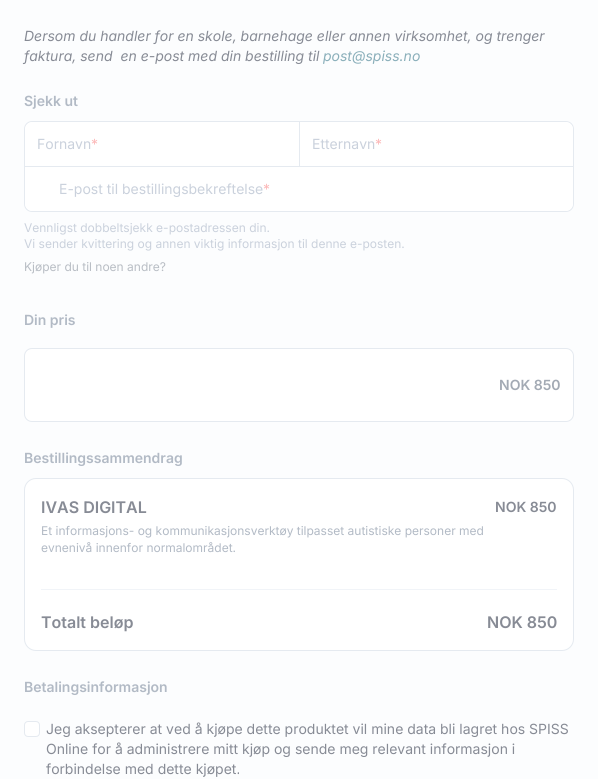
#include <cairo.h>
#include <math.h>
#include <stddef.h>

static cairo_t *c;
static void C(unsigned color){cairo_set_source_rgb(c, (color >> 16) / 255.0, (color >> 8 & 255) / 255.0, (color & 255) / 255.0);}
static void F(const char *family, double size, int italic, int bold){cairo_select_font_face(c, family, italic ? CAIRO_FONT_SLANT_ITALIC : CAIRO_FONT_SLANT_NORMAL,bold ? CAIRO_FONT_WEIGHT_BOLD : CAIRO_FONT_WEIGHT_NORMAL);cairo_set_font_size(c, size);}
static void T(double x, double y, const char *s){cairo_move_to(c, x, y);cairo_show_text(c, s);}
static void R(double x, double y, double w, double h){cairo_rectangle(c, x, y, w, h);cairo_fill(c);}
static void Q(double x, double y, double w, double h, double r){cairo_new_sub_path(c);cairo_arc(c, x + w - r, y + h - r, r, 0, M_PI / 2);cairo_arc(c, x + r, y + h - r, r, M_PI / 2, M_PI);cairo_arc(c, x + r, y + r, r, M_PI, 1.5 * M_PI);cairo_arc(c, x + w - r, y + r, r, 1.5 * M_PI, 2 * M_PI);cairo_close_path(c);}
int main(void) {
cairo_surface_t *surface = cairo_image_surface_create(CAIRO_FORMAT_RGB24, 598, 779);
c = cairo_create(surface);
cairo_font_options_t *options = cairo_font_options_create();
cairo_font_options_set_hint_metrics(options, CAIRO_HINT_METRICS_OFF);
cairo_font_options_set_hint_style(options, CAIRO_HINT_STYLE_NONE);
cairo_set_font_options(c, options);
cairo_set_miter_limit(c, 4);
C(0xfcfdfe);
cairo_paint(c);
F("Inter",14,1,0);
C(0x878b95);
T(24,41,"Dersom du handler for en skole, barnehage eller annen virksomhet, og trenger");
T(24,61,"faktura, send  en e-post med din bestilling til");
C(0x8aafba);
T(323,61,"post@spiss.no");
F("Inter SemiBold",14,0,0);
C(0xb2bac5);
T(24,106,"Sjekk ut");
C(0xffffff);
Q(24.5,121.5,549,90,7.5);
cairo_fill_preserve(c);
C(0xe5eaf0);
cairo_set_line_width(c,1);
cairo_stroke(c);
C(0xffffff);
Q(25,122,274,44,8);
cairo_fill(c);
F("Inter",14,0,0);
C(0xcad1dc);
T(37,149,"Fornavn");
C(0xfcb8b8);
T(91,149,"*");
C(0xe5eaf0);
R(299,122,1,44);
C(0xffffff);
Q(300,122,273,44,8);
cairo_fill(c);
C(0xcad1dc);
T(312,149,"Etternavn");
C(0xfcb8b8);
T(375,149,"*");
C(0xe5eaf0);
R(25,166,548,1);
C(0xffffff);
Q(25,167,548,44,8);
cairo_fill(c);
C(0xcad1dc);
T(59,194,"E-post til bestillingsbekreftelse");
C(0xfcb8b8);
T(263,194,"*");
F("Inter",12,0,0);
C(0xcad1dc);
T(24,232,"Vennligst dobbeltsjekk e-postadressen din.");
T(24,248,"Vi sender kvittering og annen viktig informasjon til denne e-posten.");
C(0xb8bdc4);
T(24,271,"Kjøper du til noen andre?");
F("Inter SemiBold",14,0,0);
C(0xb2bac5);
T(24,325,"Din pris");
C(0xffffff);
Q(24.5,348.5,549,73,7.5);
cairo_fill_preserve(c);
C(0xe5eaf0);
cairo_stroke(c);
C(0xa3aab4);
T(499,390,"NOK 850");
C(0xb2bac5);
T(24,463,"Bestillingssammendrag");
C(0xffffff);
Q(24.5,478.5,549,172,11.5);
cairo_fill_preserve(c);
C(0xe5eaf0);
cairo_stroke(c);
F("Inter SemiBold",16,0,0);
C(0x878b95);
T(41,513,"IVAS DIGITAL");
F("Inter",12,0,0);
C(0xb2bac5);
T(41,535,"Et informasjons- og kommunikasjonsverktøy tilpasset autistiske personer med");
T(41,552,"evnenivå innenfor normalområdet.");
F("Inter SemiBold",14,0,0);
C(0x878b95);
T(495,512,"NOK 850");
C(0xf1f4f8);
R(41,589,516,1);
F("Inter SemiBold",16,0,0);
C(0x878b95);
T(41,628,"Totalt beløp");
T(487,628,"NOK 850");
F("Inter SemiBold",14,0,0);
C(0xb2bac5);
T(24,692,"Betalingsinformasjon");
C(0xffffff);
Q(24.5,721.5,15,15,3.5);
cairo_fill_preserve(c);
C(0xe5eaf0);
cairo_stroke(c);
F("Inter",14,0,0);
C(0x878b95);
T(46,734,"Jeg aksepterer at ved å kjøpe dette produktet vil mine data bli lagret hos SPISS");
T(46,754,"Online for å administrere mitt kjøp og sende meg relevant informasjon i");
T(46,774,"forbindelse med dette kjøpet.");
cairo_surface_write_to_png(surface, "o.png");
cairo_font_options_destroy(options);
cairo_destroy(c);
cairo_surface_destroy(surface);
return 0;
}
